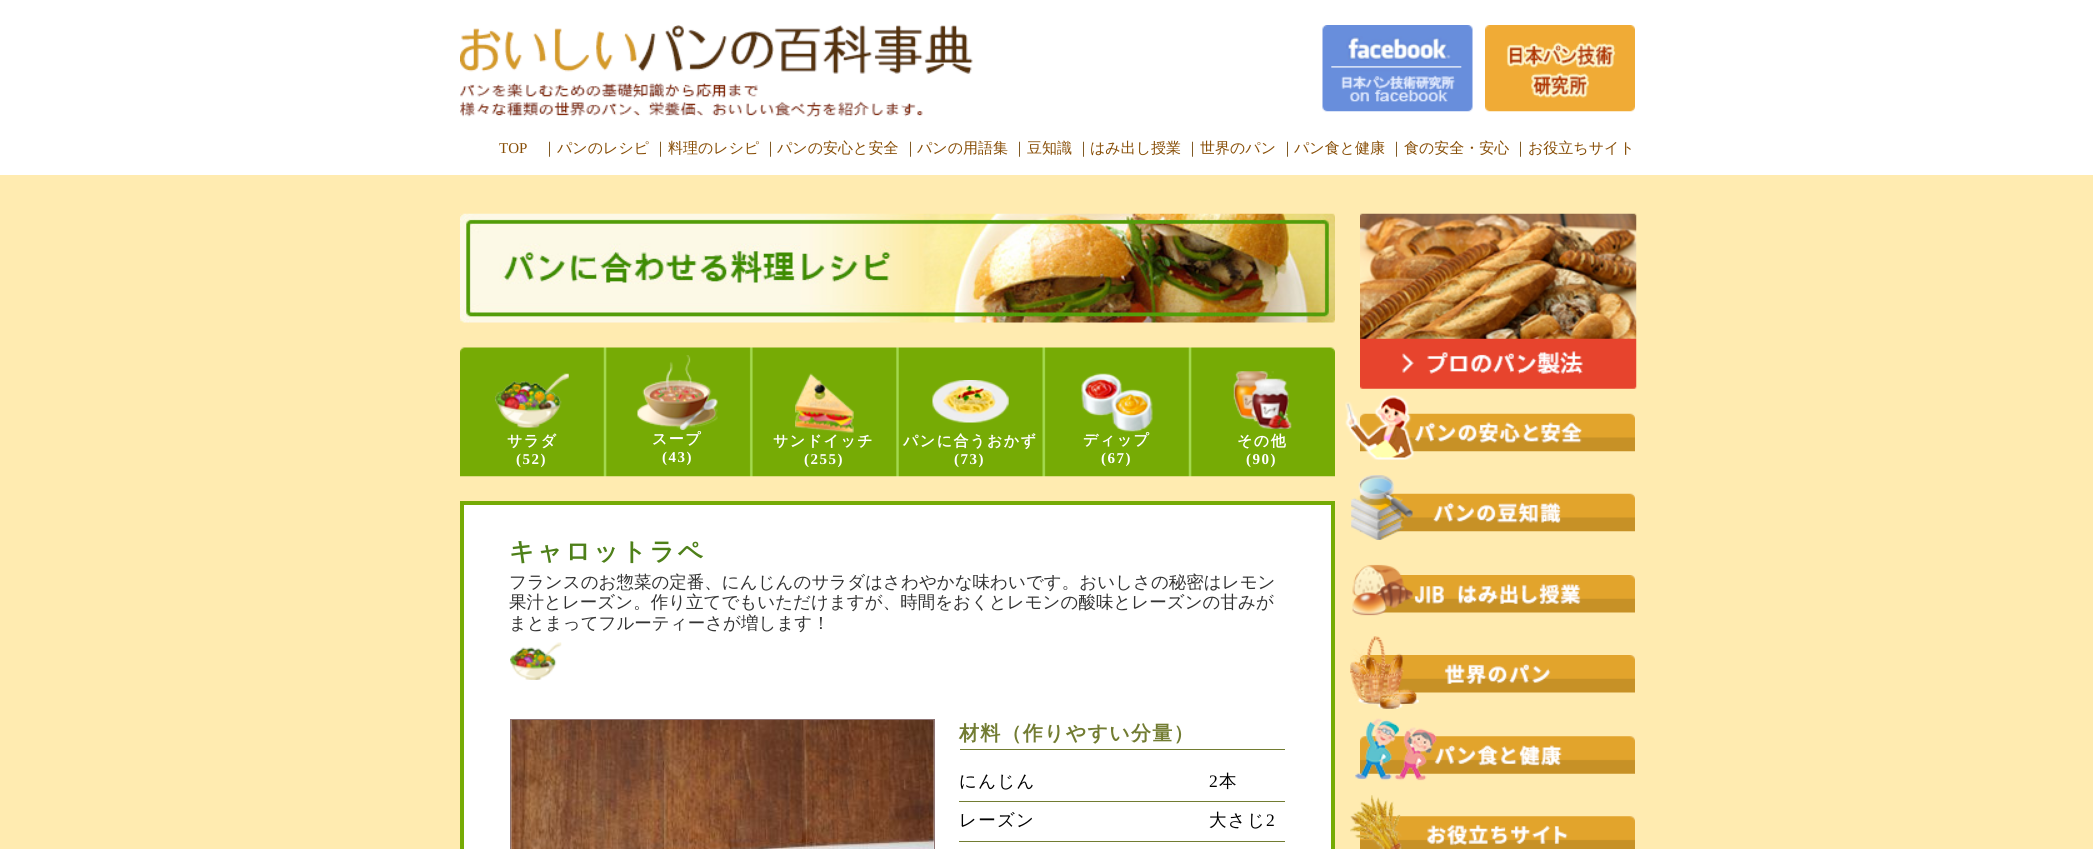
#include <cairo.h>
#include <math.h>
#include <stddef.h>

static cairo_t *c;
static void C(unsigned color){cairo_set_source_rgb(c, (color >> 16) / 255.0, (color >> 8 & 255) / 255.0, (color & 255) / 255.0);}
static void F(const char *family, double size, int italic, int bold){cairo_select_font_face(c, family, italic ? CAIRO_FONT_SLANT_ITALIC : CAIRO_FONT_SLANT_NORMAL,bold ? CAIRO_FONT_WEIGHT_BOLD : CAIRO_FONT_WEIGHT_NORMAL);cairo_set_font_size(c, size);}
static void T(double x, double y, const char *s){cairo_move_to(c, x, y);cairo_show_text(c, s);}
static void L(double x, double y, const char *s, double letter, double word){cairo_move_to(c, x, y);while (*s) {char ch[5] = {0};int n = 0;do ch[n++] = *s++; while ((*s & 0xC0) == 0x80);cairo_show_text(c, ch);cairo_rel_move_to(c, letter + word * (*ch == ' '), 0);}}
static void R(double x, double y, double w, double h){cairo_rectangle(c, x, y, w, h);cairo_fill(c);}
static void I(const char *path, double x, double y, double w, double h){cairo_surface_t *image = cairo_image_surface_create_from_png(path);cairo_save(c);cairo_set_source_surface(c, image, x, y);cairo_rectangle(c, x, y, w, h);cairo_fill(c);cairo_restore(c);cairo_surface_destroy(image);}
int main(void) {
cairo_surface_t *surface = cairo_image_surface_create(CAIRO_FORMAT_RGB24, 2093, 849);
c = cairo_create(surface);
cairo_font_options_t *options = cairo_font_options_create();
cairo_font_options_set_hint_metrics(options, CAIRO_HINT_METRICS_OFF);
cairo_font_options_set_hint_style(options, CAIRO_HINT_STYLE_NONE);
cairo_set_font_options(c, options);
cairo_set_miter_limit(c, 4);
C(0xffffff);
cairo_paint(c);
I("1.png",460,25,513,92);
I("2.png",1322,25,151,87);
I("3.png",1485,25,150,87);
F("Liberation Serif",15,0,0);
C(0x874d05);
T(499,153,"TOP");
F("WenQuanYi Zen Hei Medium",15,0,0);
C(0x734a0f);
T(542,153,"｜");
C(0x874d05);
T(557,153,"パンのレシピ");
C(0x734a0f);
T(653,153,"｜");
C(0x874d05);
T(668,153,"料理のレシピ");
C(0x734a0f);
T(763,153,"｜");
C(0x874d05);
T(777,153,"パンの安心と安全");
C(0x734a0f);
T(903,153,"｜");
C(0x874d05);
T(917,153,"パンの用語集");
C(0x734a0f);
T(1012,153,"｜");
C(0x874d05);
T(1027,153,"豆知識");
C(0x734a0f);
T(1076,153,"｜");
C(0x874d05);
T(1090,153,"はみ出し授業");
C(0x734a0f);
T(1185,153,"｜");
C(0x874d05);
T(1200,153,"世界のパン");
C(0x734a0f);
T(1280,153,"｜");
C(0x874d05);
T(1294,153,"パン食と健康");
C(0x734a0f);
T(1389,153,"｜");
C(0x874d05);
T(1404,153,"食の安全・安心");
C(0x734a0f);
T(1513,153,"｜");
C(0x874d05);
T(1528,153,"お役立ちサイト");
C(0xffebb0);
R(0,175,2093,674);
I("4.png",460,213,875,110);
I("5.png",460,347,875,130);
I("6.png",495,373,74,55);
F("WenQuanYi Zen Hei",15,0,1);
C(0xffffff);
L(507,446,"サラダ",1.5,0);
F("Liberation Serif",15,0,1);
L(516,464,"(52)",1.5,0);
I("7.png",637,355,81,75);
F("WenQuanYi Zen Hei",15,0,1);
L(652,444,"スープ",1.5,0);
F("Liberation Serif",15,0,1);
L(662,462,"(43)",1.5,0);
I("8.png",795,373,59,60);
F("WenQuanYi Zen Hei",15,0,1);
L(773,446,"サンドイッチ",1.5,0);
F("Liberation Serif",15,0,1);
L(804,464,"(255)",1.5,0);
I("9.png",932,380,77,43);
F("WenQuanYi Zen Hei",15,0,1);
L(903,446,"パンに合うおかず",1.5,0);
F("Liberation Serif",15,0,1);
L(954,464,"(73)",1.5,0);
I("10.png",1081,373,72,59);
F("WenQuanYi Zen Hei",15,0,1);
L(1083,445,"ディップ",1.5,0);
F("Liberation Serif",15,0,1);
L(1101,463,"(67)",1.5,0);
I("11.png",1233,371,59,58);
F("WenQuanYi Zen Hei",15,0,1);
L(1237,446,"その他",1.5,0);
F("Liberation Serif",15,0,1);
L(1246,464,"(90)",1.5,0);
cairo_rectangle(c,462,503,871,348);
cairo_fill_preserve(c);
C(0x76ab05);
cairo_set_line_width(c,4);
cairo_stroke(c);
F("WenQuanYi Zen Hei",25,0,1);
C(0x4e8019);
L(509,560,"キャロットラペ",2.5,0);
F("WenQuanYi Zen Hei Medium",17.5,0,0);
C(0x333333);
T(509,588,"フランスのお惣菜の定番、にんじんのサラダはさわやかな味わいです。おいしさの秘密はレモン");
T(509,608,"果汁とレーズン。作り立てでもいただけますが、時間をおくとレモンの酸味とレーズンの甘みが");
T(509,629,"まとまってフルーティーさが増します！");
I("12.png",510,642,52,38);
cairo_rectangle(c,510.5,719.5,424,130);
C(0x8e7474);
cairo_set_line_width(c,1);
cairo_stroke(c);
I("13.png",511,720,423,129);
C(0x727c32);
R(960,749,325,1);
F("WenQuanYi Zen Hei",20,0,1);
L(959,740,"材料（作りやすい分量）",1.25,0);
R(959,801,326,1);
F("WenQuanYi Zen Hei Medium",17.5,0,0);
C(0x000000);
L(959,787,"にんじん",1.25,0);
F("Liberation Serif",17.5,0,0);
L(1209,787,"2",1.25,0);
F("WenQuanYi Zen Hei Medium",17.5,0,0);
L(1219,787,"本",1.25,0);
C(0x727c32);
R(959,841,326,1);
C(0x000000);
L(959,826,"レーズン",1.25,0);
L(1209,826,"大さじ",1.25,0);
F("Liberation Serif",17.5,0,0);
L(1266,826,"2",1.25,0);
I("14.png",1360,213,277,176);
I("16.png",1360,413,275,39);
I("15.png",1345,395,69,65);
I("18.png",1360,493,275,39);
I("17.png",1351,475,62,65);
I("20.png",1379,575,256,38);
I("19.png",1352,564,61,52);
I("22.png",1360,655,275,38);
I("21.png",1350,636,69,73);
I("24.png",1360,736,275,38);
I("23.png",1355,718,82,63);
I("26.png",1360,816,275,33);
I("25.png",1350,795,53,54);
cairo_surface_write_to_png(surface, "o.png");
cairo_font_options_destroy(options);
cairo_destroy(c);
cairo_surface_destroy(surface);
return 0;
}
